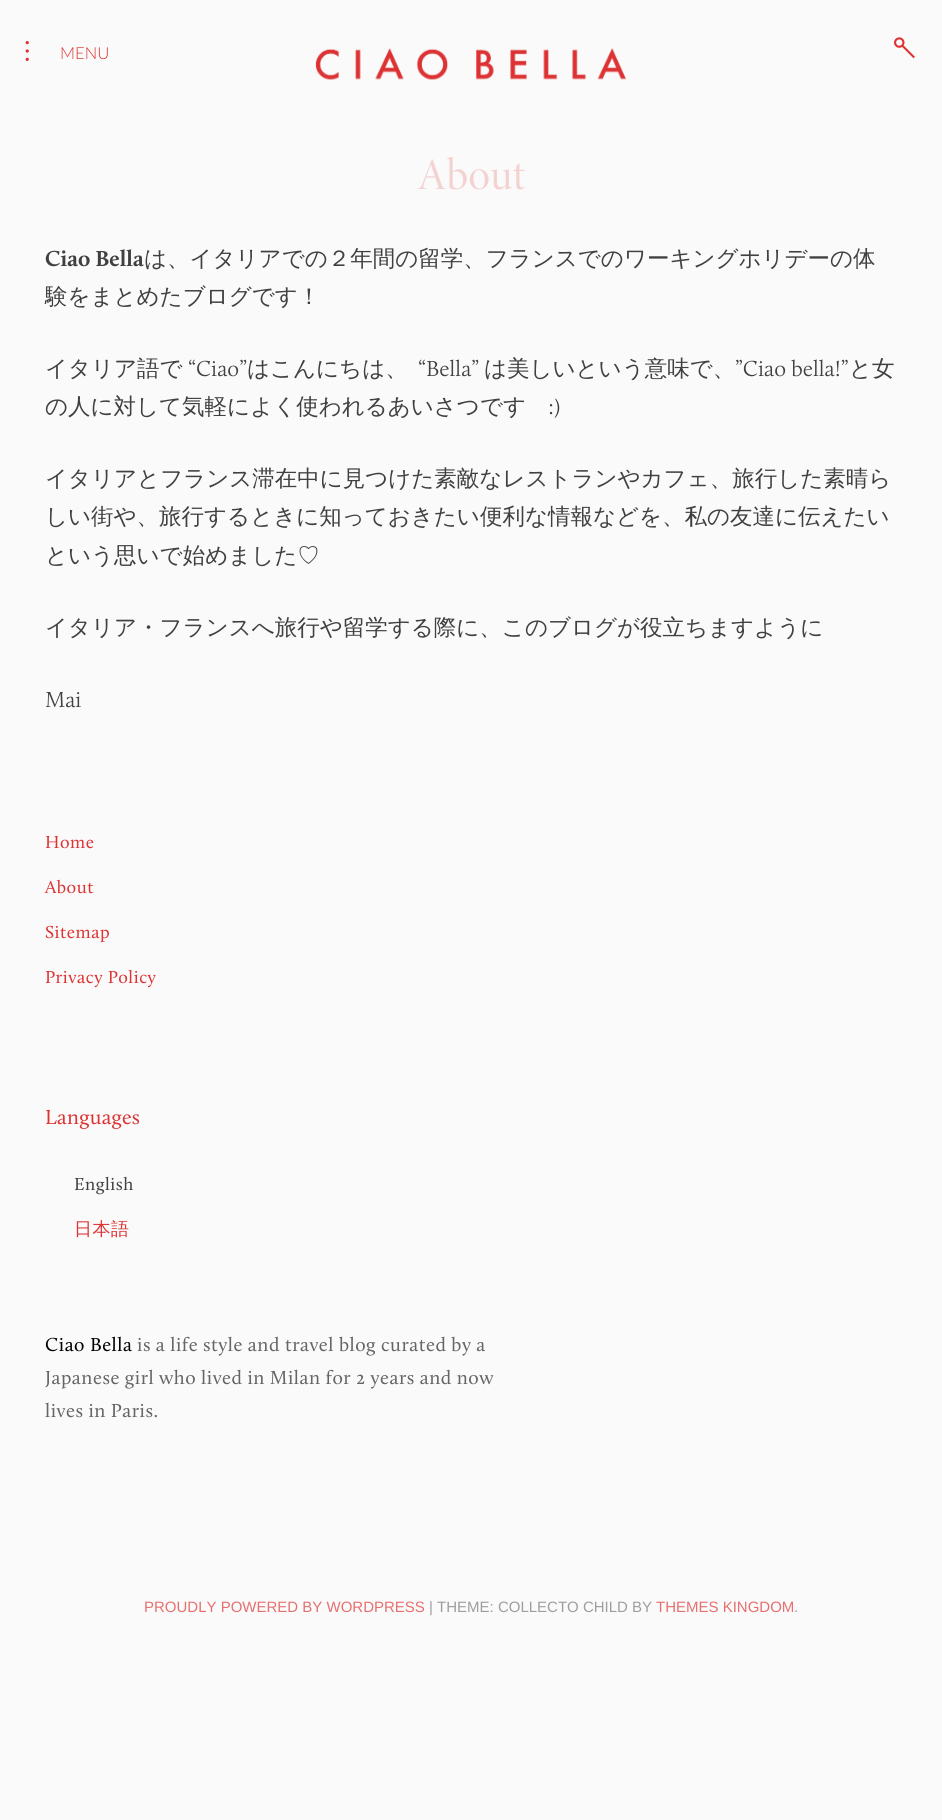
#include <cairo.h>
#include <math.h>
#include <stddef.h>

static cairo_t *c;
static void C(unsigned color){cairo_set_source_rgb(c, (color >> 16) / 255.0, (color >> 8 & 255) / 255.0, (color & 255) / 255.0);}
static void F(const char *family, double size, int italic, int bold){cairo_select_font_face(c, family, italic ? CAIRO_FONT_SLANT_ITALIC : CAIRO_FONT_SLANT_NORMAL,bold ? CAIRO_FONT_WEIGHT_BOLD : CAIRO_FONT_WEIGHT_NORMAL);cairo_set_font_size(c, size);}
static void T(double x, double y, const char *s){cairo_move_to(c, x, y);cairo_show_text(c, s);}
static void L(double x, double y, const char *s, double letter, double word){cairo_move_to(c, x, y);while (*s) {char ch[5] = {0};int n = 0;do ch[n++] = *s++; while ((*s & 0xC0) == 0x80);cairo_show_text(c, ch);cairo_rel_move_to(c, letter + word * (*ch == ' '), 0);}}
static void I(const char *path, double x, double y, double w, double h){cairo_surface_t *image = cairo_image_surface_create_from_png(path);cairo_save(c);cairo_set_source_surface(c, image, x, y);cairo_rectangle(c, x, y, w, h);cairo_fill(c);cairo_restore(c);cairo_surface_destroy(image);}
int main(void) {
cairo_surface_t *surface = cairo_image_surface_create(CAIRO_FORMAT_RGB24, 942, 1820);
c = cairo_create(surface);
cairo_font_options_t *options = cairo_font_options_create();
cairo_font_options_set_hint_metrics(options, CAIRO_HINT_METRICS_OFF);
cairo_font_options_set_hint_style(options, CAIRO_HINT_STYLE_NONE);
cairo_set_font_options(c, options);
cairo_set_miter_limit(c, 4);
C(0xfafafa);
cairo_paint(c);
I("1.png",25,41,4,20);
F("Lato Light",16.5,0,0);
C(0xdd3333);
T(60,59,"MENU");
I("2.png",315,48,311,33);
I("3.png",894,37,21,22);
F("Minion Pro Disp",45,0,0);
C(0xf4d2d2);
T(417,189,"About");
F("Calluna",22.5,0,1);
C(0x404040);
T(45,266,"Ciao Bella");
F("WenQuanYi Zen Hei Medium",22.5,0,0);
T(144,266,"は、イタリアでの２年間の留学、フランスでのワーキングホリデーの体");
T(45,304,"験をまとめたブログです！");
T(45,376,"イタリア語で");
F("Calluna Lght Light",22.5,0,0);
T(188,376,"“Ciao”");
F("WenQuanYi Zen Hei Medium",22.5,0,0);
T(247,376,"はこんにちは、");
F("Calluna Lght Light",22.5,0,0);
T(418,376,"“Bella”");
F("WenQuanYi Zen Hei Medium",22.5,0,0);
T(484,376,"は美しいという意味で、");
F("Calluna Lght Light",22.5,0,0);
T(735,376,"”Ciao bella!”");
F("WenQuanYi Zen Hei Medium",22.5,0,0);
T(849,376,"と女");
T(45,414,"の人に対して気軽によく使われるあいさつです");
F("Calluna Lght Light",22.5,0,0);
T(548,414,":)");
F("WenQuanYi Zen Hei Medium",22.5,0,0);
T(45,486,"イタリアとフランス滞在中に見つけた素敵なレストランやカフェ、旅行した素晴ら");
T(45,524,"しい街や、旅行するときに知っておきたい便利な情報などを、私の友達に伝えたい");
T(45,563,"という思いで始めました♡");
T(45,635,"イタリア・フランスへ旅行や留学する際に、このブログが役立ちますように");
F("Calluna Lght Light",22.5,0,0);
T(45,707,"Mai");
F("Calluna",18,0,0);
C(0xdd3333);
L(45,848,"Home",.5,0);
L(45,893,"About",.5,0);
L(45,938,"Sitemap",.5,0);
L(45,983,"Privacy Policy",.5,0);
F("Calluna",21,0,0);
L(45,1124,"Languages",.25,0);
F("Calluna",18,0,0);
C(0x404040);
L(74,1190,"English",.5,0);
F("WenQuanYi Zen Hei Medium",18,0,0);
C(0xdd3333);
L(74,1235,"日本語",.5,0);
F("Calluna",19.5,0,0);
C(0x000000);
L(45,1351,"Ciao Bella",.5,0);
C(0x656565);
L(137,1351,"is a life style and travel blog curated by a",.5,0);
L(45,1384,"Japanese girl who lived in Milan for 2 years and now",.5,0);
L(45,1417,"lives in Paris.",.5,0);
F("Liberation Sans",15,0,0);
C(0xe66f6f);
T(144,1612,"PROUDLY POWERED BY WORDPRESS");
C(0x9d9d9d);
T(429,1612,"| THEME: COLLECTO CHILD BY");
C(0xe66f6f);
T(656,1612,"THEMES KINGDOM");
C(0x9d9d9d);
T(794,1612,".");
cairo_surface_write_to_png(surface, "o.png");
cairo_font_options_destroy(options);
cairo_destroy(c);
cairo_surface_destroy(surface);
return 0;
}
